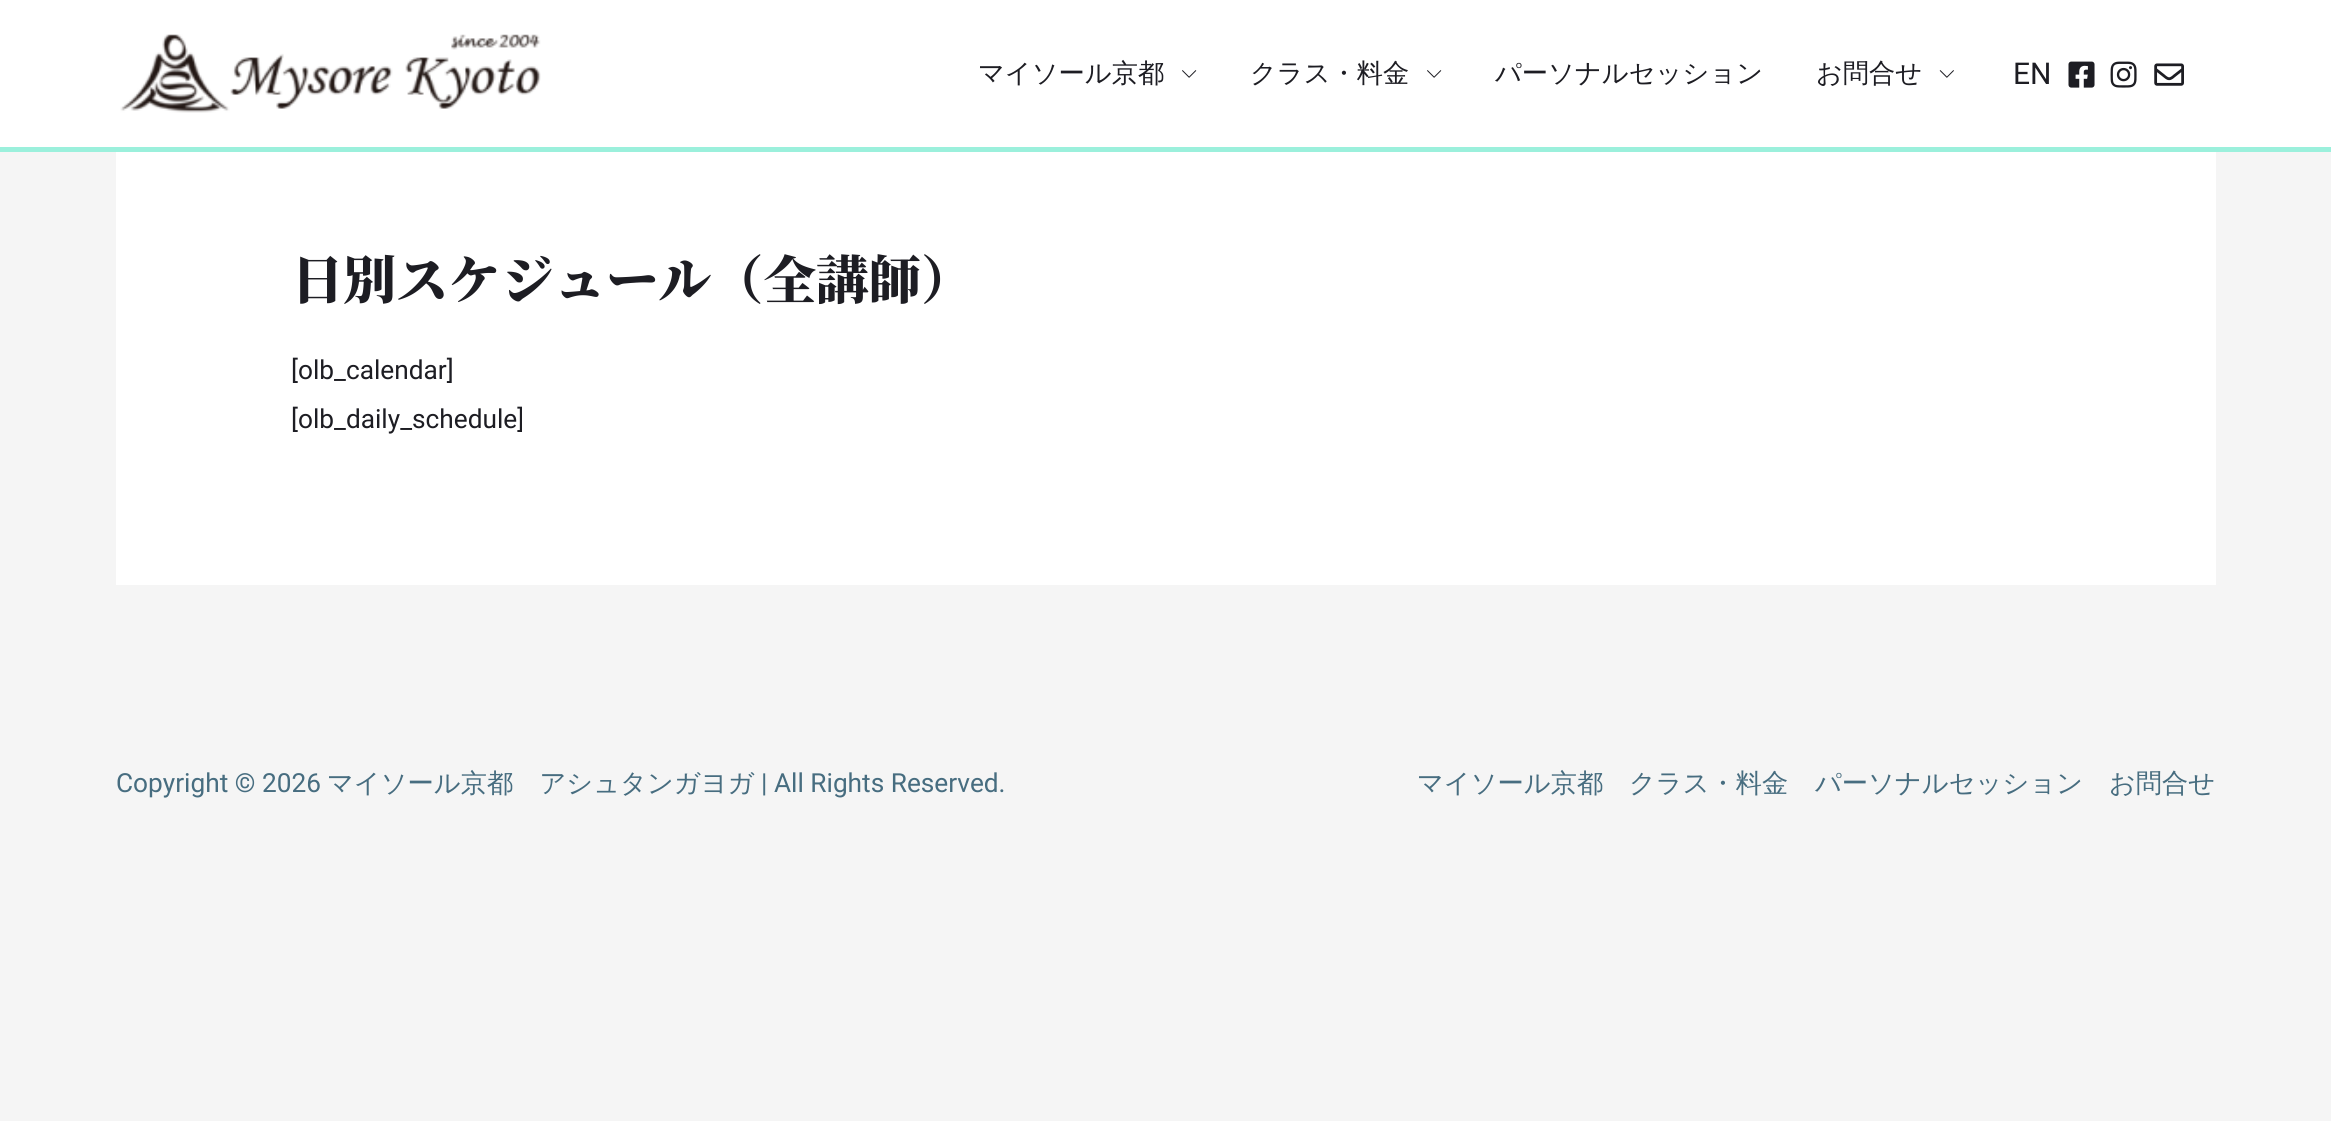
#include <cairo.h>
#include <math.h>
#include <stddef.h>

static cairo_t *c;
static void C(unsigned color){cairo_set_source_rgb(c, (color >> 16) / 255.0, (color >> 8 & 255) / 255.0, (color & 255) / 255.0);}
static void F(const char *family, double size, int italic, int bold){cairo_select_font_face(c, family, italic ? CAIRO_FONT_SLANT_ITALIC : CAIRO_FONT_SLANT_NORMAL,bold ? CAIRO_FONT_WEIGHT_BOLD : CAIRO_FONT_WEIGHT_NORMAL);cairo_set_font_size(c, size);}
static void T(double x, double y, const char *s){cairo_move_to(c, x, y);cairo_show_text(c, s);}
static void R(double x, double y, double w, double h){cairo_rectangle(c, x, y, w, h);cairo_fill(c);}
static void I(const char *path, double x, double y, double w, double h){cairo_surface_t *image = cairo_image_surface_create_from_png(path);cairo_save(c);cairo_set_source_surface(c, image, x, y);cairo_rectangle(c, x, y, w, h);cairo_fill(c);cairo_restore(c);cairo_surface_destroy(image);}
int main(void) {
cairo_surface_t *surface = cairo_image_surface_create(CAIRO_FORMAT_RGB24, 2331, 1121);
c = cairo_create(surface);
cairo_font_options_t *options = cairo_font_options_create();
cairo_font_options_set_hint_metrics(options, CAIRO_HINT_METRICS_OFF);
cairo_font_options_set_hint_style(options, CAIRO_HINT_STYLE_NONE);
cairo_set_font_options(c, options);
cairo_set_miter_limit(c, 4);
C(0xf5f5f5);
cairo_paint(c);
C(0xffffff);
R(0,0,2331,147);
C(0x9bf0dc);
R(0,147,2331,5);
I("1.png",120,34,421,79);
F("WenQuanYi Zen Hei Medium",26.25,0,0);
C(0x1d1d23);
T(978,82,"マイソール京都");
I("2.png",1182,70,15,8);
T(1250,82,"クラス・料金");
I("2.png",1427,70,15,8);
T(1495,82,"パーソナルセッション");
T(1816,82,"お問合せ");
I("3.png",1939,70,15,8);
F("Roboto",30,0,0);
T(2013,84,"EN");
I("4.png",2068,61,27,27);
I("5.png",2110,61,27,27);
I("6.png",2154,63,30,23);
C(0xffffff);
R(116,152,2100,433);
F("Noto Serif JP ExtraLight",52.5,0,0);
C(0x1d1d23);
T(291,299,"日別スケジュール（全講師）");
F("Roboto",26.25,0,0);
T(291,379,"[olb_calendar]");
T(291,428,"[olb_daily_schedule]");
C(0x476d80);
T(116,792,"Copyright © 2026");
F("WenQuanYi Zen Hei Medium",26.25,0,0);
T(327,792,"マイソール京都　アシュタンガヨガ");
F("Roboto",26.25,0,0);
T(761,792,"| All Rights Reserved.");
F("WenQuanYi Zen Hei Medium",26.25,0,0);
T(1417,792,"マイソール京都");
T(1629,792,"クラス・料金");
T(1815,792,"パーソナルセッション");
T(2109,792,"お問合せ");
cairo_surface_write_to_png(surface, "o.png");
cairo_font_options_destroy(options);
cairo_destroy(c);
cairo_surface_destroy(surface);
return 0;
}
